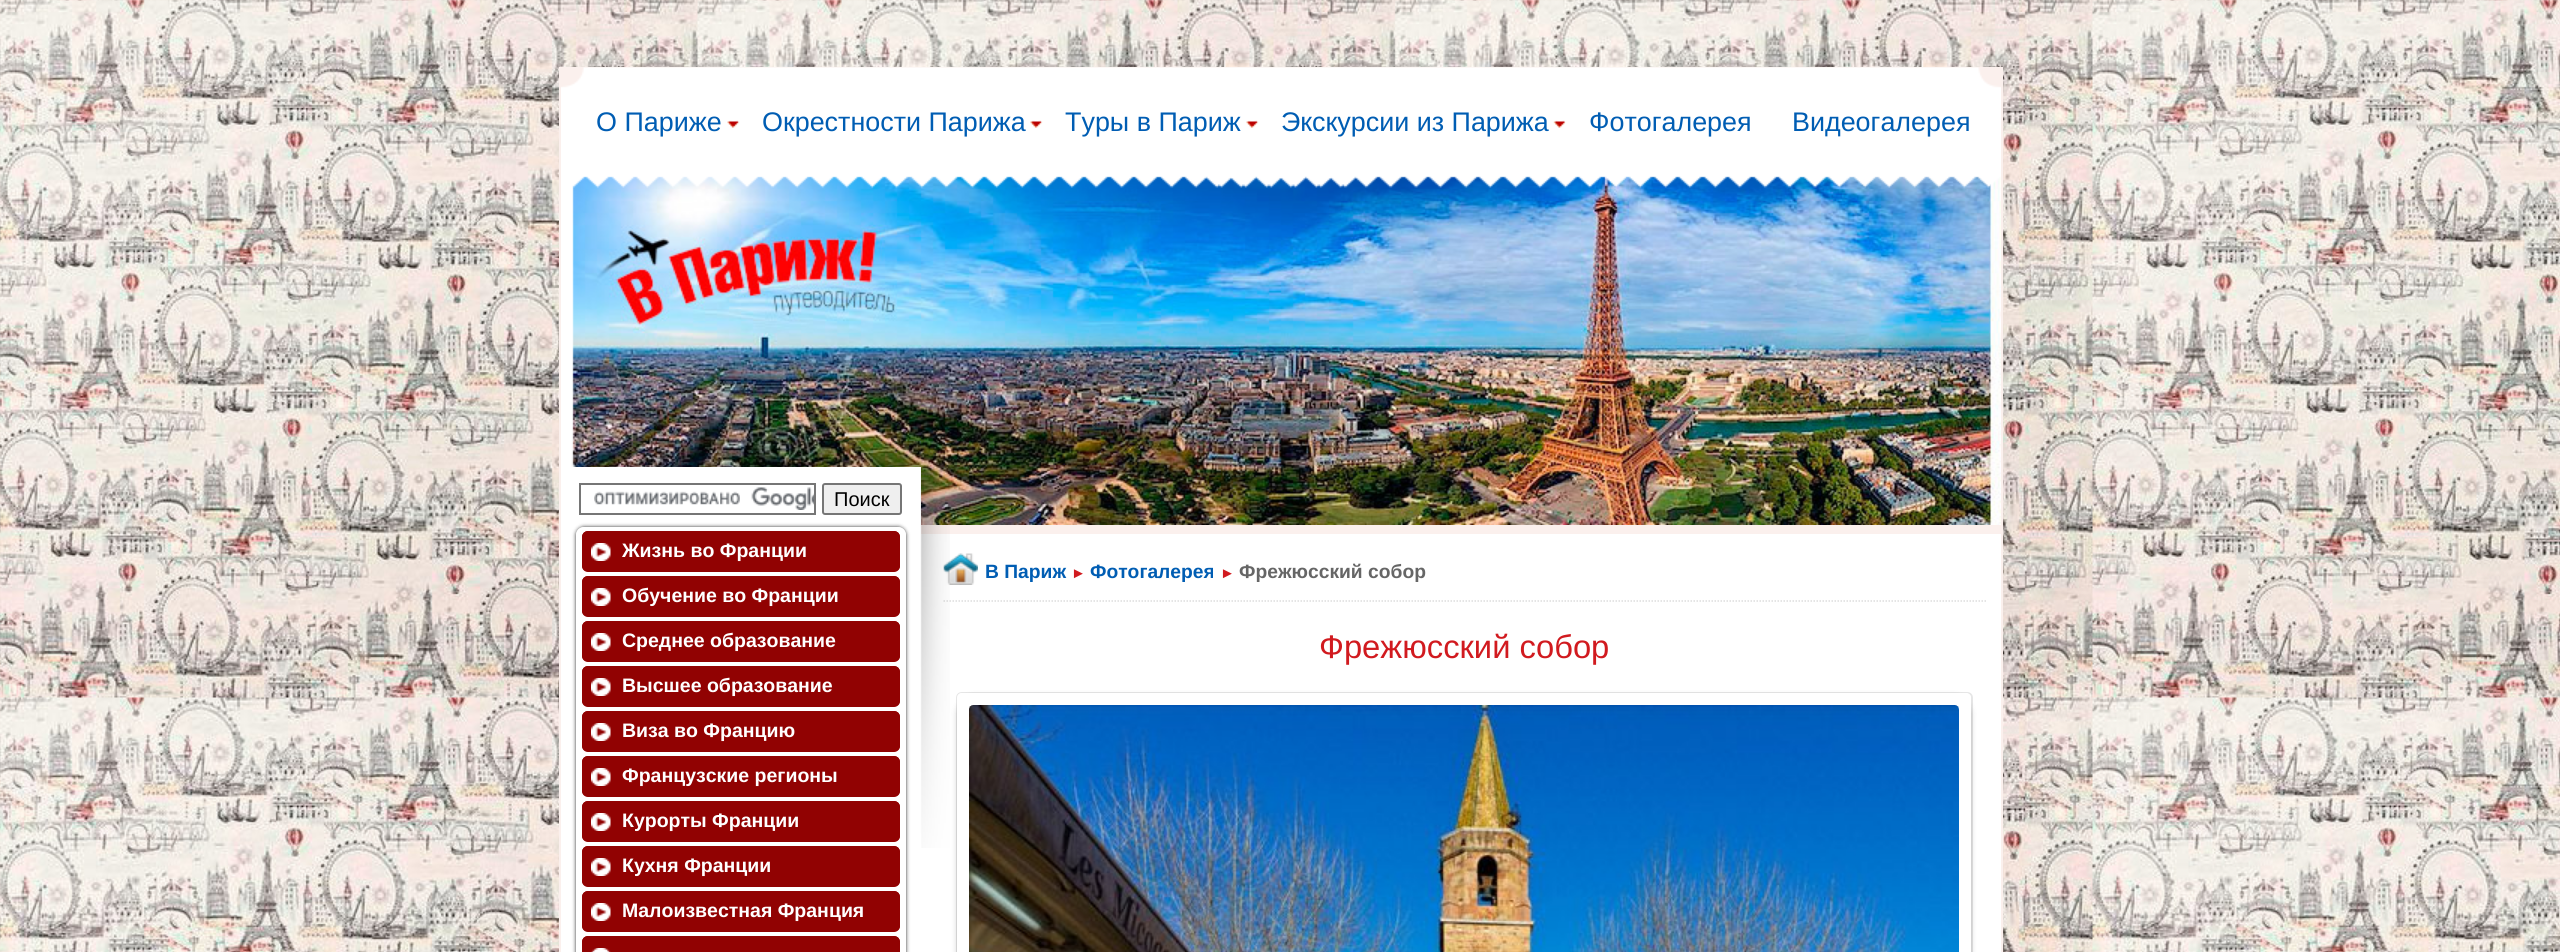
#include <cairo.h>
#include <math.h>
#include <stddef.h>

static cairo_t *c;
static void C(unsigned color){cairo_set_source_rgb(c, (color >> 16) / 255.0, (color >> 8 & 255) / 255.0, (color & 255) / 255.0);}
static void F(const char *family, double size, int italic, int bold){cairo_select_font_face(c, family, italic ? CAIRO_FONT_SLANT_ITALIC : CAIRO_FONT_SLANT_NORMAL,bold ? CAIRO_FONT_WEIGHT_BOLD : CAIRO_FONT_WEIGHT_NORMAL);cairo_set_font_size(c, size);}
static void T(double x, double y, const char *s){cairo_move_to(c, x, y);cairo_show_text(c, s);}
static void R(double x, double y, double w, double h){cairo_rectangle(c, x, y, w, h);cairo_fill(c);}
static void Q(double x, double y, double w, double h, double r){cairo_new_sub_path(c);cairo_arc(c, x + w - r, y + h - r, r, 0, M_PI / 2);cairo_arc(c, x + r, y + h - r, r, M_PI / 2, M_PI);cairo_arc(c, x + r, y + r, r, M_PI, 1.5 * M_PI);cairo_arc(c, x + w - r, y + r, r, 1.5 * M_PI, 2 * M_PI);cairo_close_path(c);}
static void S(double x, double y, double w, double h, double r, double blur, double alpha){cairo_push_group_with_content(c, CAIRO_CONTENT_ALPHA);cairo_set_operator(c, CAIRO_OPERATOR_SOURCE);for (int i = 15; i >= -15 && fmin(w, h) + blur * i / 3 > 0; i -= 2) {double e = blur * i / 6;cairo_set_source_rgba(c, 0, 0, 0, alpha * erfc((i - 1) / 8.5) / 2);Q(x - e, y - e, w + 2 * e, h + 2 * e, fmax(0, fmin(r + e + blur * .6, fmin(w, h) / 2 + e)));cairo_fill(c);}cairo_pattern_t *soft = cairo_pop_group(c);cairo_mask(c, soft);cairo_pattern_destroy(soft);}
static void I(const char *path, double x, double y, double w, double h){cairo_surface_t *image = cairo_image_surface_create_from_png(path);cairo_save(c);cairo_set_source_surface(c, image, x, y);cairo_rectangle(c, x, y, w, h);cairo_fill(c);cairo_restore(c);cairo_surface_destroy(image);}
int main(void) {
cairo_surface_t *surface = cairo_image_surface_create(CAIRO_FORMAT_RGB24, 2560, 952);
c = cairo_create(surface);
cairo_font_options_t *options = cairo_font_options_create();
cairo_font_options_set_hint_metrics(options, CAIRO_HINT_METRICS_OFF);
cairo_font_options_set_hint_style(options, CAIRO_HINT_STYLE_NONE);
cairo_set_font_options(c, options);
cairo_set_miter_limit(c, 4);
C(0xffffff);
cairo_paint(c);
I("1.png",0,0,2560,952);
C(0xfbf0ed);
R(559,67,1444,885);
I("6.png",561,176,1440,349);
I("2.png",561,67,1440,121);
I("3.png",727,120,13,8);
F("Liberation Sans",26.9,0,0);
C(0x005db3);
T(596,131,"О Париже");
I("4.png",1030,120,13,8);
T(762,131,"Окрестности Парижа");
I("3.png",1246,120,13,8);
T(1065,131,"Туры в Париж");
I("5.png",1553,120,13,8);
T(1281,131,"Экскурсии из Парижа");
T(1589,131,"Фотогалерея");
T(1792,131,"Видеогалерея");
C(0xffffff);
R(921,534,1080,418);
R(561,467,360,485);
cairo_new_path(c);
cairo_move_to(c,943.5,601);
cairo_line_to(c,1986,601);
C(0xdddddd);
cairo_set_line_width(c,1.5);
cairo_set_dash(c,(double[]){1.5,1.5},2,0);
cairo_stroke(c);
I("13.png",943,553,35,32);
C(0x000000);
S(957,696,1014,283,18,3,.2);
I("7.png",571,436,379,412);
I("8.png",594,487,220,23);
cairo_rectangle(c,580,484,235,30);
C(0x767676);
cairo_set_line_width(c,2);
cairo_set_dash(c,NULL,0,0);
cairo_stroke(c);
C(0xefefef);
Q(823,484,78,30,2);
cairo_fill_preserve(c);
C(0x767676);
cairo_stroke(c);
F("Liberation Sans",20,0,0);
C(0x000000);
T(834,506,"Поиск");
cairo_save(c);
cairo_set_fill_rule(c,CAIRO_FILL_RULE_EVEN_ODD);
cairo_new_path(c);
cairo_move_to(c,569,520);
cairo_line_to(c,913,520);
cairo_line_to(c,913,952);
cairo_line_to(c,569,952);
cairo_close_path(c);
cairo_move_to(c,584,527);
cairo_line_to(c,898,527);
cairo_curve_to(c,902.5,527,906,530.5,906,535);
cairo_line_to(c,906,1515);
cairo_curve_to(c,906,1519.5,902.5,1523,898,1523);
cairo_line_to(c,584,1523);
cairo_curve_to(c,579.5,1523,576,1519.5,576,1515);
cairo_line_to(c,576,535);
cairo_curve_to(c,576,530.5,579.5,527,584,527);
cairo_close_path(c);
cairo_clip(c);
C(0x333333);
S(576,527,330,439,8,2,1);
cairo_restore(c);
C(0x910202);
Q(582,531,318,41,6);
cairo_fill(c);
I("9.png",582,531,318,41);
I("10.png",591,543,20,18);
F("Arimo",19.5,0,1);
C(0xffffff);
T(622,557,"Жизнь во Франции");
C(0x910202);
Q(582,576,318,41,6);
cairo_fill(c);
I("9.png",582,576,318,41);
I("10.png",591,588,20,18);
C(0xffffff);
T(622,602,"Обучение во Франции");
C(0x910202);
Q(582,621,318,41,6);
cairo_fill(c);
I("9.png",582,621,318,41);
I("10.png",591,633,20,18);
C(0xffffff);
T(622,647,"Среднее образование");
C(0x910202);
Q(582,666,318,41,6);
cairo_fill(c);
I("9.png",582,666,318,41);
I("10.png",591,678,20,18);
C(0xffffff);
T(622,692,"Высшее образование");
C(0x910202);
Q(582,711,318,41,6);
cairo_fill(c);
I("9.png",582,711,318,41);
I("10.png",591,723,20,18);
C(0xffffff);
T(622,737,"Виза во Францию");
C(0x910202);
Q(582,756,318,41,6);
cairo_fill(c);
I("9.png",582,756,318,41);
I("10.png",591,768,20,18);
C(0xffffff);
T(622,782,"Французские регионы");
C(0x910202);
Q(582,801,318,41,6);
cairo_fill(c);
I("9.png",582,801,318,41);
I("10.png",591,813,20,18);
C(0xffffff);
T(622,827,"Курорты Франции");
C(0x910202);
Q(582,846,318,41,6);
cairo_fill(c);
I("9.png",582,846,318,41);
I("10.png",591,858,20,18);
C(0xffffff);
T(622,872,"Кухня Франции");
C(0x910202);
Q(582,891,318,41,6);
cairo_fill(c);
I("9.png",582,891,318,41);
I("10.png",591,903,20,18);
C(0xffffff);
T(622,917,"Малоизвестная Франция");
C(0x910202);
Q(582,936,318,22,6);
cairo_fill(c);
I("11.png",582,936,318,6);
I("12.png",591,948,20,4);
F("Liberation Sans",19.25,0,1);
C(0x005db3);
T(985,578,"В Париж");
F("Liberation Sans",15,0,1);
C(0xd11a1f);
T(1071,578,"►");
F("Liberation Sans",19.25,0,1);
C(0x005db3);
T(1090,578,"Фотогалерея");
F("Liberation Sans",15,0,1);
C(0xd11a1f);
T(1220,578,"►");
F("Liberation Sans",19.25,0,1);
C(0x666666);
T(1239,578,"Фрежюсский собор");
F("Liberation Sans",32.75,0,0);
C(0xd11a1f);
T(1319,658,"Фрежюсский собор");
cairo_new_path(c);
cairo_move_to(c,962,693);
cairo_line_to(c,1967,693);
cairo_curve_to(c,1970,693,1972,695,1972,698);
cairo_line_to(c,1972,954);
cairo_curve_to(c,1972,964.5,1963.5,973,1953,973);
cairo_line_to(c,976,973);
cairo_curve_to(c,965.5,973,957,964.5,957,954);
cairo_line_to(c,957,698);
cairo_curve_to(c,957,695,959,693,962,693);
cairo_close_path(c);
cairo_set_source_rgba(c,0,0,0,0.1);
cairo_stroke(c);
C(0xffffff);
cairo_new_path(c);
cairo_move_to(c,962,693);
cairo_line_to(c,1966,693);
cairo_curve_to(c,1969,693,1971,695,1971,698);
cairo_line_to(c,1971,952);
cairo_curve_to(c,1971,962,1963,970,1953,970);
cairo_line_to(c,975,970);
cairo_curve_to(c,965,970,957,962,957,952);
cairo_line_to(c,957,698);
cairo_curve_to(c,957,695,959,693,962,693);
cairo_close_path(c);
cairo_fill(c);
cairo_set_source_rgba(c,1,1,1,0.8);
cairo_new_path(c);
cairo_move_to(c,962,694);
cairo_line_to(c,1966,694);
cairo_curve_to(c,1969,694,1971,697,1971,699);
cairo_curve_to(c,1971,696,1969,693,1966,693);
cairo_line_to(c,962,693);
cairo_curve_to(c,959,693,957,696,957,699);
cairo_curve_to(c,957,697,959,694,962,694);
cairo_close_path(c);
cairo_fill(c);
I("14.png",969,705,990,247);
cairo_surface_write_to_png(surface, "o.png");
cairo_font_options_destroy(options);
cairo_destroy(c);
cairo_surface_destroy(surface);
return 0;
}
